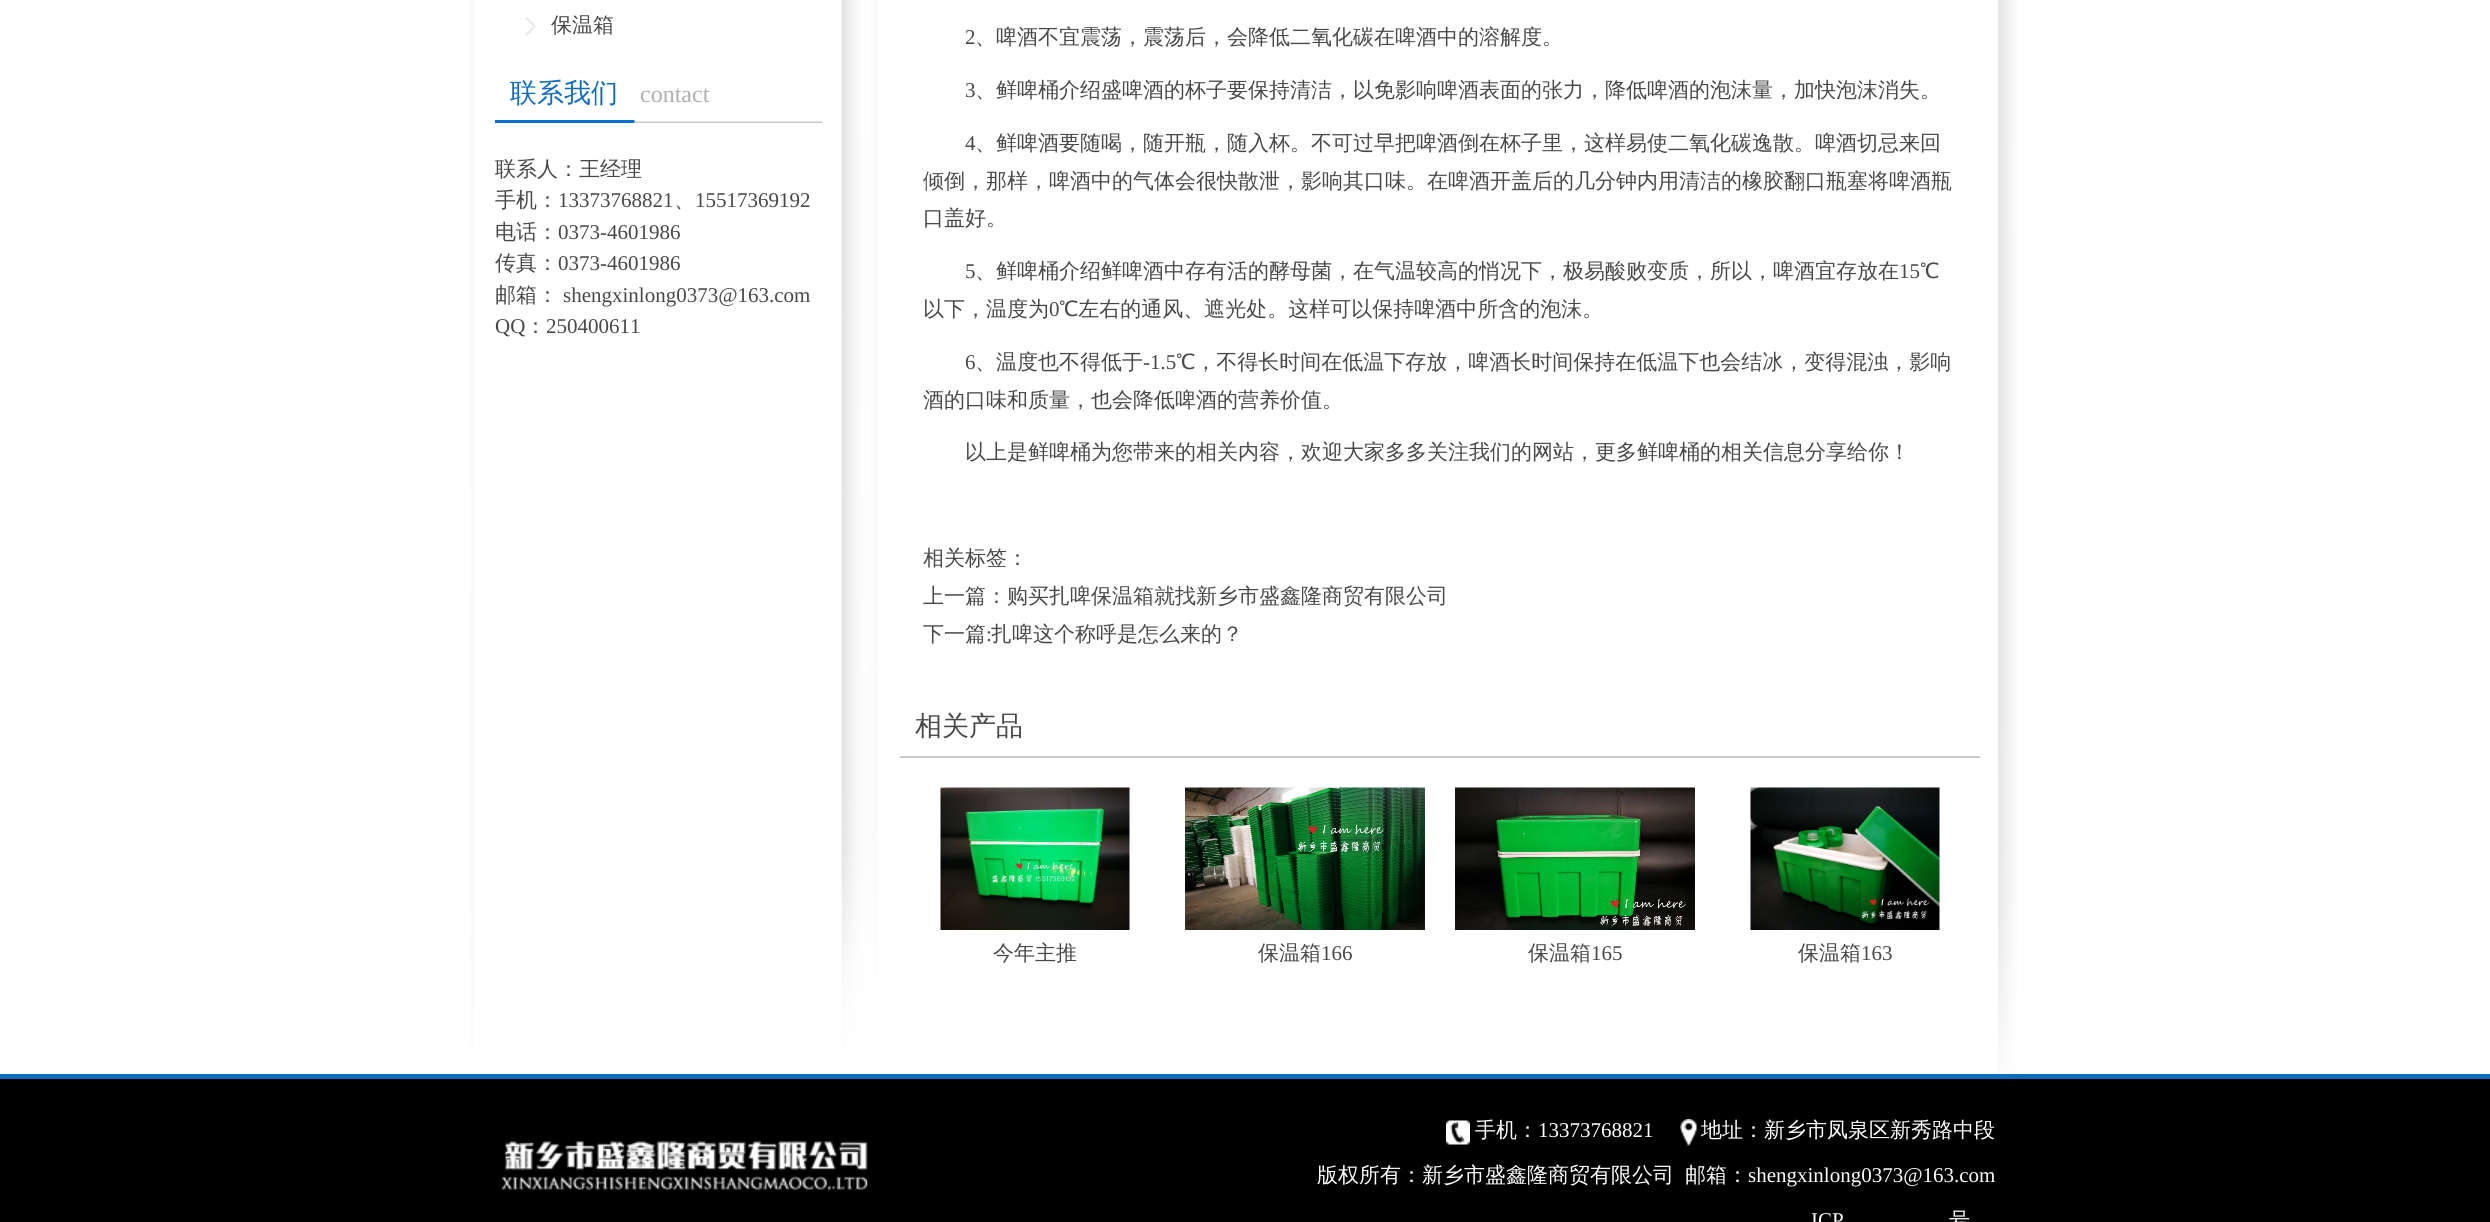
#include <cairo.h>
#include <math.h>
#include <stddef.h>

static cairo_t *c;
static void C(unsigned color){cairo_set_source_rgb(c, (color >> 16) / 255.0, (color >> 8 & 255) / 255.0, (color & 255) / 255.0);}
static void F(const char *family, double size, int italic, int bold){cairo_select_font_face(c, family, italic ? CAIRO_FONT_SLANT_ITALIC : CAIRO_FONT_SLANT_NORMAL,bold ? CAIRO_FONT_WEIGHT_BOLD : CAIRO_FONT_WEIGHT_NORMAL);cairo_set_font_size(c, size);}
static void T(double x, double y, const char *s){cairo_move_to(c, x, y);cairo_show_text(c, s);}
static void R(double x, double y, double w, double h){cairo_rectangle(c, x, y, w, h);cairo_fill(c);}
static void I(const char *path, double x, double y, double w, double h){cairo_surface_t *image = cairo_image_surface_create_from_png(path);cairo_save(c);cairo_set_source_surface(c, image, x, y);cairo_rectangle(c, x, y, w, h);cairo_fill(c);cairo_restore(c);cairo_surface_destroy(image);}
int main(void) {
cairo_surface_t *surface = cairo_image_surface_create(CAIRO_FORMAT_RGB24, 2490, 1222);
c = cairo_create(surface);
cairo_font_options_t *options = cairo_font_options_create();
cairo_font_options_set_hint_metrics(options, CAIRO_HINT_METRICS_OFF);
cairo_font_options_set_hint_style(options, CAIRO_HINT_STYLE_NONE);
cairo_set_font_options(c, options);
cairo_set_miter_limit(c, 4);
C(0xffffff);
cairo_paint(c);
I("1.png",470,0,1547,1074);
I("2.png",525,16,11,20);
F("WenQuanYi Zen Hei Medium",21,0,0);
C(0x484848);
T(551,32,"保温箱");
I("3.png",495,120,328,3);
F("WenQuanYi Zen Hei Medium",27,0,0);
C(0x116cbf);
T(510,102,"联系我们");
F("Liberation Serif",24,0,0);
C(0xafb0b0);
T(640,102,"contact");
F("WenQuanYi Zen Hei Medium",21,0,0);
C(0x484848);
T(495,176,"联系人：王经理");
T(495,207,"手机：");
F("Liberation Serif",21,0,0);
T(558,207,"13373768821");
F("WenQuanYi Zen Hei Medium",21,0,0);
T(674,207,"、");
F("Liberation Serif",21,0,0);
T(695,207,"15517369192");
F("WenQuanYi Zen Hei Medium",21,0,0);
T(495,239,"电话：");
F("Liberation Serif",21,0,0);
T(558,239,"0373-4601986");
F("WenQuanYi Zen Hei Medium",21,0,0);
T(495,270,"传真：");
F("Liberation Serif",21,0,0);
T(558,270,"0373-4601986");
F("WenQuanYi Zen Hei Medium",21,0,0);
T(495,302,"邮箱：");
F("Liberation Serif",21,0,0);
T(563,302,"shengxinlong0373@163.com");
T(495,333,"QQ");
F("WenQuanYi Zen Hei Medium",21,0,0);
T(525,333,"：");
F("Liberation Serif",21,0,0);
T(546,333,"250400611");
T(965,44,"2");
F("WenQuanYi Zen Hei Medium",21,0,0);
T(975,44,"、啤酒不宜震荡，震荡后，会降低二氧化碳在啤酒中的溶解度。");
F("Liberation Serif",21,0,0);
T(965,97,"3");
F("WenQuanYi Zen Hei Medium",21,0,0);
T(975,97,"、鲜啤桶介绍盛啤酒的杯子要保持清洁，以免影响啤酒表面的张力，降低啤酒的泡沫量，加快泡沫消失。");
F("Liberation Serif",21,0,0);
T(965,150,"4");
F("WenQuanYi Zen Hei Medium",21,0,0);
T(975,150,"、鲜啤酒要随喝，随开瓶，随入杯。不可过早把啤酒倒在杯子里，这样易使二氧化碳逸散。啤酒切忌来回");
T(923,188,"倾倒，那样，啤酒中的气体会很快散泄，影响其口味。在啤酒开盖后的几分钟内用清洁的橡胶翻口瓶塞将啤酒瓶");
T(923,225,"口盖好。");
F("Liberation Serif",21,0,0);
T(965,278,"5");
F("WenQuanYi Zen Hei Medium",21,0,0);
T(975,278,"、鲜啤桶介绍鲜啤酒中存有活的酵母菌，在气温较高的悄况下，极易酸败变质，所以，啤酒宜存放在");
F("Liberation Serif",21,0,0);
T(1899,278,"15");
F("WenQuanYi Zen Hei Medium",21,0,0);
T(1920,278,"℃");
T(923,316,"以下，温度为");
F("Liberation Serif",21,0,0);
T(1049,316,"0");
F("WenQuanYi Zen Hei Medium",21,0,0);
T(1059,316,"℃左右的通风、遮光处。这样可以保持啤酒中所含的泡沫。");
F("Liberation Serif",21,0,0);
T(965,369,"6");
F("WenQuanYi Zen Hei Medium",21,0,0);
T(975,369,"、温度也不得低于");
F("Liberation Serif",21,0,0);
T(1143,369,"-1.5");
F("WenQuanYi Zen Hei Medium",21,0,0);
T(1176,369,"℃，不得长时间在低温下存放，啤酒长时间保持在低温下也会结冰，变得混浊，影响");
T(923,407,"酒的口味和质量，也会降低啤酒的营养价值。");
T(965,459,"以上是鲜啤桶为您带来的相关内容，欢迎大家多多关注我们的网站，更多鲜啤桶的相关信息分享给你！");
T(923,565,"相关标签：");
T(923,603,"上一篇：购买扎啤保温箱就找新乡市盛鑫隆商贸有限公司");
T(923,641,"下一篇");
F("Liberation Serif",21,0,0);
T(986,641,":");
F("WenQuanYi Zen Hei Medium",21,0,0);
T(991,641,"扎啤这个称呼是怎么来的？");
C(0xcbcbcb);
R(900,756,1080,2);
F("WenQuanYi Zen Hei Medium",27,0,0);
C(0x484848);
T(915,735,"相关产品");
I("4.png",940,787,190,143);
F("WenQuanYi Zen Hei Medium",21,0,0);
T(993,960,"今年主推");
I("5.png",1185,787,240,143);
T(1258,960,"保温箱");
F("Liberation Serif",21,0,0);
T(1321,960,"166");
I("6.png",1455,787,240,143);
F("WenQuanYi Zen Hei Medium",21,0,0);
T(1528,960,"保温箱");
F("Liberation Serif",21,0,0);
T(1591,960,"165");
I("7.png",1750,787,190,143);
F("WenQuanYi Zen Hei Medium",21,0,0);
T(1798,960,"保温箱");
F("Liberation Serif",21,0,0);
T(1861,960,"163");
C(0x000000);
R(0,1079,2490,143);
C(0x116cbf);
R(0,1074,2490,5);
I("8.png",501,1141,367,51);
I("9.png",1446,1120,24,25);
F("WenQuanYi Zen Hei Medium",21,0,0);
C(0xffffff);
T(1475,1137,"手机：");
F("Liberation Serif",21,0,0);
T(1538,1137,"13373768821");
I("10.png",1680,1119,17,27);
F("WenQuanYi Zen Hei Medium",21,0,0);
T(1701,1137,"地址：新乡市凤泉区新秀路中段");
T(1317,1182,"版权所有：新乡市盛鑫隆商贸有限公司");
T(1685,1182,"邮箱：");
F("Liberation Serif",21,0,0);
T(1748,1182,"shengxinlong0373@163.com");
T(1811,1227,"ICP");
F("WenQuanYi Zen Hei Medium",21,0,0);
T(1949,1227,"号");
cairo_surface_write_to_png(surface, "o.png");
cairo_font_options_destroy(options);
cairo_destroy(c);
cairo_surface_destroy(surface);
return 0;
}
